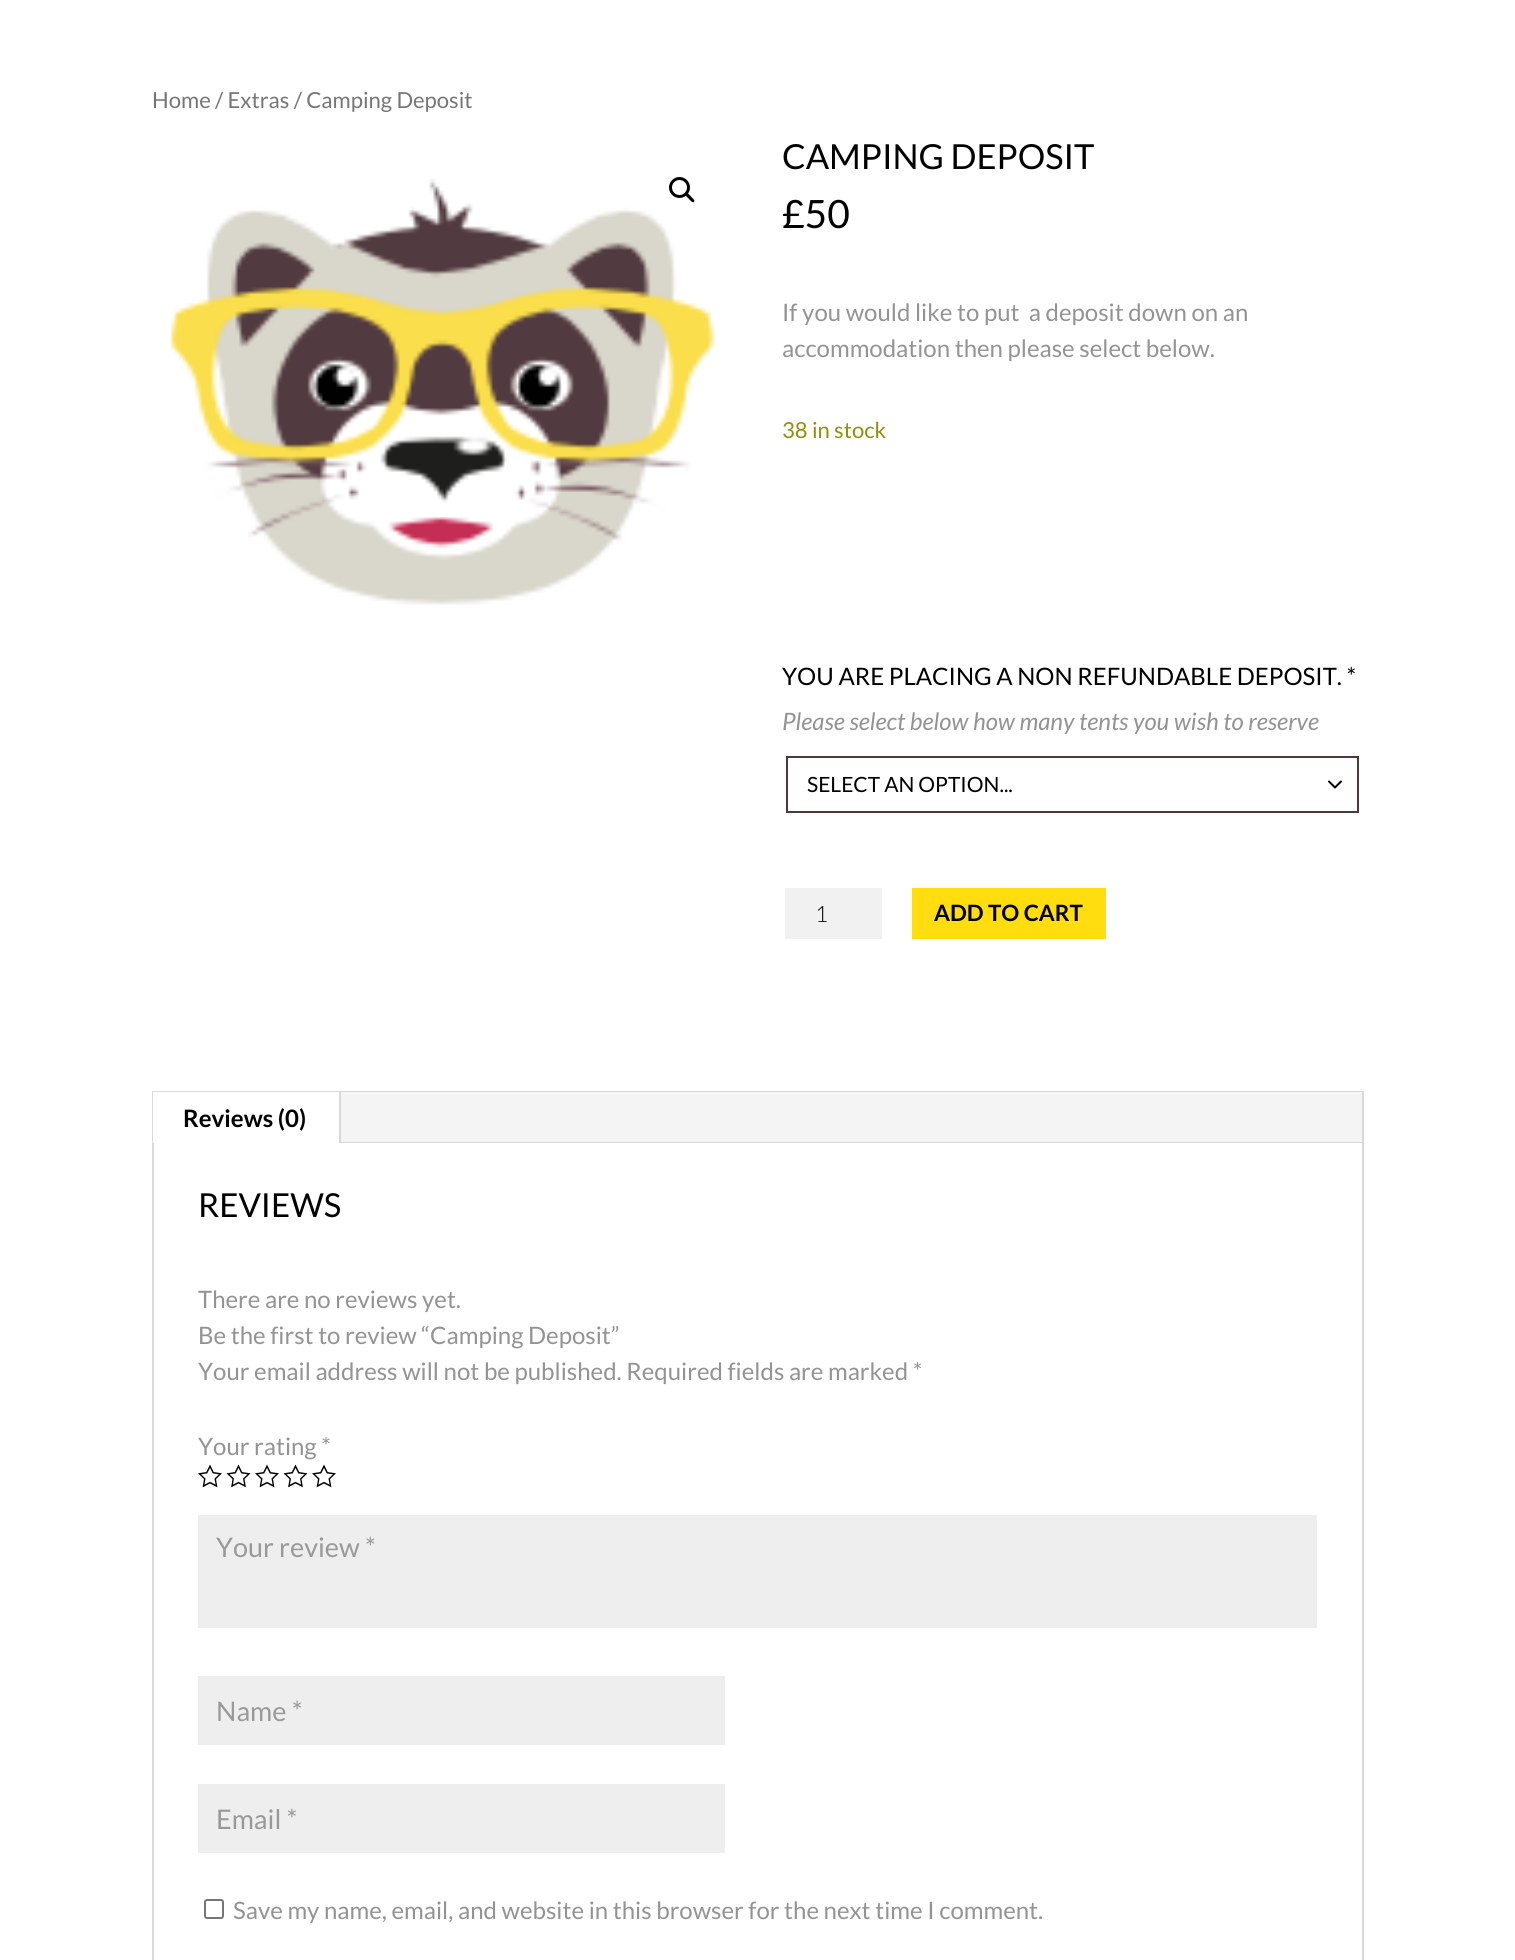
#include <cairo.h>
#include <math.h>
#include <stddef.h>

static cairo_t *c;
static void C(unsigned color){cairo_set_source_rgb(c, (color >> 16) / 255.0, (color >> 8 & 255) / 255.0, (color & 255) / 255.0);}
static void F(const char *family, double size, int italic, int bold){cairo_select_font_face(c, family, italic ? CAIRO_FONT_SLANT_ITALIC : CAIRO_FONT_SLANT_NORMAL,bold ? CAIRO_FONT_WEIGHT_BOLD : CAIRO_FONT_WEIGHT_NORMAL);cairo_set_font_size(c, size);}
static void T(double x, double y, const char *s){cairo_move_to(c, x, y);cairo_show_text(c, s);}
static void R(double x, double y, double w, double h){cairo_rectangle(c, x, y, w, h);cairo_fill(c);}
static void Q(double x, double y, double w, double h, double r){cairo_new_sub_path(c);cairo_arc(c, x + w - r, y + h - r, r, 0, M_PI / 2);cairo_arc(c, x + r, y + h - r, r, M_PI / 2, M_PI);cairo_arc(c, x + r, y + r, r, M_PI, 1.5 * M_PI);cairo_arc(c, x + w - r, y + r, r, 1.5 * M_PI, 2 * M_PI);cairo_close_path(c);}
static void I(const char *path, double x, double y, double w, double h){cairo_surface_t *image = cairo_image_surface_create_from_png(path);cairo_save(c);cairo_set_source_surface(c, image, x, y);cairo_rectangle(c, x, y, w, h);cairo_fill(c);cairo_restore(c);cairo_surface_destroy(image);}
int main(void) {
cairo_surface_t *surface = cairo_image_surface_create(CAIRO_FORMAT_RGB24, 1515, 1960);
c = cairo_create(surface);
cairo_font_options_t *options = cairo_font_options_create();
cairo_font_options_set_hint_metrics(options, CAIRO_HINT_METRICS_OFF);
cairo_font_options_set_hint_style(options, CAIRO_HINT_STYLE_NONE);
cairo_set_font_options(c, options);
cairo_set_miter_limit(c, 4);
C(0xffffff);
cairo_paint(c);
F("Lato",22.1,0,0);
C(0x767676);
T(152,108,"Home / Extras / Camping Deposit");
I("1.png",170,178,545,427);
cairo_arc(c,679.5,187.5,9,0,2 * M_PI);
C(0x000000);
cairo_set_line_width(c,3);
cairo_stroke(c);
cairo_new_path(c);
cairo_move_to(c,685.5,193.5);
cairo_curve_to(c,687,191.5,690,195.5,691,196.5);
cairo_curve_to(c,691.5,197.5,695.5,200,694,202);
cairo_curve_to(c,692.5,203.5,689.5,199.5,688.5,198.5);
cairo_curve_to(c,688,197.5,684,195,685.5,193.5);
cairo_close_path(c);
cairo_fill(c);
F("Lato",34.5,0,0);
T(782,169,"CAMPING DEPOSIT");
F("Lato",39,0,0);
T(782,228,"£50");
F("Lato",24,0,0);
C(0x939393);
T(782,321,"If you would like to put  a deposit down on an");
T(782,357,"accommodation then please select below.");
F("Lato",22.1,0,0);
C(0x958e09);
T(782,438,"38 in stock");
F("Lato",24,0,0);
C(0x000000);
T(782,685,"YOU ARE PLACING A NON REFUNDABLE DEPOSIT. *");
F("Lato",24,1,0);
C(0x939393);
T(782,730,"Please select below how many tents you wish to reserve");
cairo_new_path(c);
cairo_move_to(c,1329,781.5);
cairo_line_to(c,1335,787.5);
cairo_line_to(c,1341,781.5);
C(0x000000);
cairo_set_line_width(c,2);
cairo_set_line_cap(c,CAIRO_LINE_CAP_ROUND);
cairo_set_line_join(c,CAIRO_LINE_JOIN_ROUND);
cairo_stroke(c);
cairo_rectangle(c,787,757,571,55);
C(0x4d3939);
cairo_set_line_cap(c,CAIRO_LINE_CAP_BUTT);
cairo_set_line_join(c,CAIRO_LINE_JOIN_MITER);
cairo_stroke(c);
F("Lato",21,0,0);
C(0x000000);
T(807,792,"SELECT AN OPTION...");
C(0xf1f1f1);
R(785,888,97,51);
F("Lato Light",22.5,0,0);
C(0x000000);
T(815,922,"1");
C(0xffdd0e);
R(912,888,194,51);
F("Lato",22.5,0,1);
C(0x000000);
T(934,921,"ADD TO CART");
cairo_rectangle(c,153,1092,1210,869);
C(0xd9d9d9);
cairo_stroke(c);
C(0xf4f4f4);
R(341,1092,1021,50);
C(0xffffff);
R(153,1092,186,51);
C(0xd9d9d9);
R(339,1092,2,51);
F("Lato",24,0,1);
C(0x000000);
T(183,1127,"Reviews (0)");
C(0xd9d9d9);
R(341,1142,1021,1);
F("Lato",33,0,0);
C(0x000000);
T(198,1217,"REVIEWS");
F("Lato",24,0,0);
C(0x939393);
T(198,1308,"There are no reviews yet.");
T(198,1344,"Be the first to review “Camping Deposit”");
T(198,1380,"Your email address will not be published. Required fields are marked *");
T(198,1455,"Your rating *");
I("2.png",198,1464,24,24);
I("3.png",226,1464,25,24);
I("2.png",255,1464,24,24);
I("3.png",283,1464,25,24);
I("2.png",312,1464,24,24);
C(0xeeeeee);
R(198,1515,1119,113);
F("Lato",27,0,0);
C(0x999999);
T(216,1557,"Your review *");
C(0xeeeeee);
R(198,1676,527,69);
C(0x999999);
T(216,1721,"Name *");
C(0xeeeeee);
R(198,1784,527,69);
C(0x999999);
T(216,1829,"Email *");
Q(205,1900,18,18,2);
C(0x767676);
cairo_stroke(c);
F("Lato",24,0,0);
C(0x939393);
T(233,1919,"Save my name, email, and website in this browser for the next time I comment.");
cairo_surface_write_to_png(surface, "o.png");
cairo_font_options_destroy(options);
cairo_destroy(c);
cairo_surface_destroy(surface);
return 0;
}
